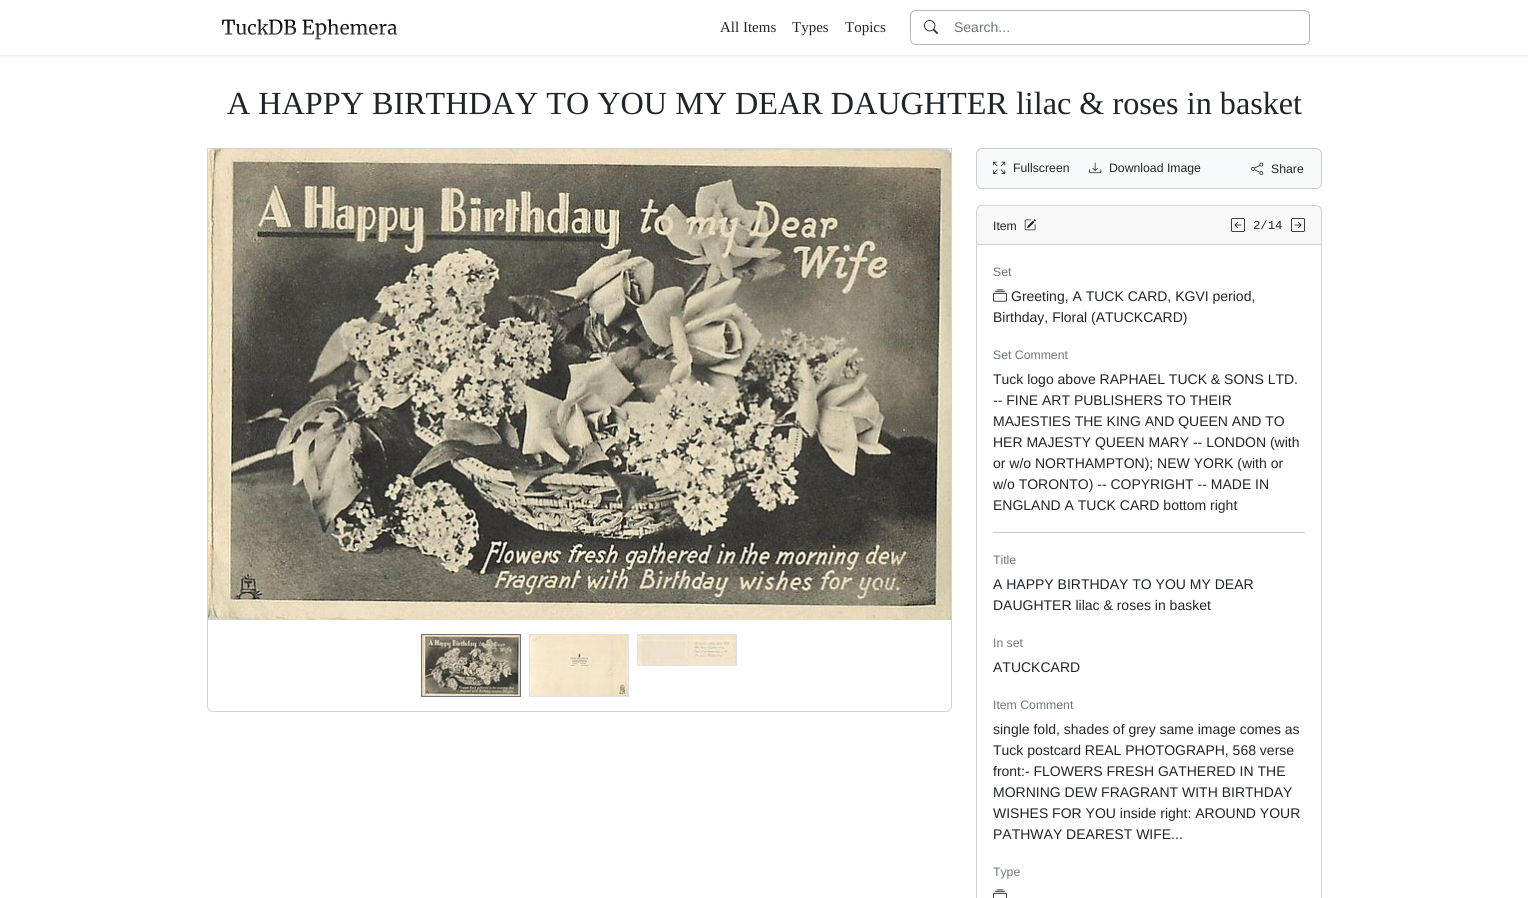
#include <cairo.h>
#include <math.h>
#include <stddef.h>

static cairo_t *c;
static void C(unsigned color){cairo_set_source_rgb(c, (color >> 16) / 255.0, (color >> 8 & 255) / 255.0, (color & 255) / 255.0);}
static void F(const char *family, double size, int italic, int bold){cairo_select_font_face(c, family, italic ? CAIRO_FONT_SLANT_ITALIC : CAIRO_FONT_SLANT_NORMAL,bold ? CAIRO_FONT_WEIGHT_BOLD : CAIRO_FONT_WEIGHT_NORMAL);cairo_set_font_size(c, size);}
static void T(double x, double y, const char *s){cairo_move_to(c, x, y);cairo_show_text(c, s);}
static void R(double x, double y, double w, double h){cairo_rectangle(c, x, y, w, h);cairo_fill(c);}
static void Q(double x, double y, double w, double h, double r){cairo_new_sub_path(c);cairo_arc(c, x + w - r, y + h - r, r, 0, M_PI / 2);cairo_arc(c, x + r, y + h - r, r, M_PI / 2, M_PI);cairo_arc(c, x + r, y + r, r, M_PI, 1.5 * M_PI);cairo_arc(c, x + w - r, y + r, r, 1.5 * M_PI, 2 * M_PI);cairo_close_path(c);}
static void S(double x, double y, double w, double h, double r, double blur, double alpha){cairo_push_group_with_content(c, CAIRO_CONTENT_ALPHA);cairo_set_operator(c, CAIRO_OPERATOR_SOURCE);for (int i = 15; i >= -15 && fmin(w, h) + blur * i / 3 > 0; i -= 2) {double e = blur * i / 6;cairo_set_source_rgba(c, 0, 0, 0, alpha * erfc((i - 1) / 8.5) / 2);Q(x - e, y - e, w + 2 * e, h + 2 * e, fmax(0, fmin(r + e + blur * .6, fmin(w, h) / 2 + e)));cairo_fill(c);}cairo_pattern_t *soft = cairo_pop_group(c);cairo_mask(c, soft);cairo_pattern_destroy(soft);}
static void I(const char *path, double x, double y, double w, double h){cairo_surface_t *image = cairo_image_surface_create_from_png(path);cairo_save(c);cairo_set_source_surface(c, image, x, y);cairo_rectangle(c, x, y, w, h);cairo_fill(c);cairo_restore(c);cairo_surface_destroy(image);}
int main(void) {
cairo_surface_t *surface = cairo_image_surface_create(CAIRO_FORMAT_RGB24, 1528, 898);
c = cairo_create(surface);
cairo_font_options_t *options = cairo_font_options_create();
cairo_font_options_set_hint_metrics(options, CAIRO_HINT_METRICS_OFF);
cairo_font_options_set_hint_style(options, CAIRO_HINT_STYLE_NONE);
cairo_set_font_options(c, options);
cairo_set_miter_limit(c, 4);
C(0xffffff);
cairo_paint(c);
cairo_save(c);
cairo_rectangle(c,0,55,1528,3);
cairo_clip(c);
C(0x000000);
S(0,2,1528,55,0,2,.07);
cairo_restore(c);
I("1.png",221,19,176,21);
F("Liberation Serif",15,0,0);
C(0x212529);
T(720,32,"All Items");
T(792,32,"Types");
T(845,32,"Topics");
Q(910.5,10.5,399,34,5.5);
C(0xadb5bd);
cairo_set_line_width(c,1);
cairo_stroke(c);
I("2.png",924,20,14,14);
F("Liberation Sans",14,0,0);
C(0x6c757d);
T(954,32,"Search...");
C(0xffffff);
cairo_new_path(c);
cairo_move_to(c,1283,11);
cairo_line_to(c,1303,11);
cairo_curve_to(c,1306.5,11,1309,13.5,1309,17);
cairo_line_to(c,1309,38);
cairo_curve_to(c,1309,41.5,1306.5,44,1303,44);
cairo_line_to(c,1283,44);
cairo_close_path(c);
cairo_fill(c);
F("Liberation Serif",32.2,0,0);
C(0x212529);
T(227,114,"A HAPPY BIRTHDAY TO YOU MY DEAR DAUGHTER lilac & roses in basket");
cairo_new_path(c);
cairo_move_to(c,207.5,148.5);
cairo_line_to(c,951.5,148.5);
cairo_line_to(c,951.5,706);
cairo_curve_to(c,951.5,709,949,711.5,946,711.5);
cairo_line_to(c,213,711.5);
cairo_curve_to(c,210,711.5,207.5,709,207.5,706);
cairo_close_path(c);
C(0xd2d2d2);
cairo_stroke(c);
I("3.png",208,149,743,471);
cairo_rectangle(c,421.5,634.5,99,62);
C(0x6c757d);
cairo_stroke(c);
I("4.png",422,635,98,61);
cairo_rectangle(c,529.5,634.5,99,62);
C(0xdee2e6);
cairo_stroke(c);
I("5.png",530,635,98,61);
cairo_rectangle(c,637.5,634.5,99,31);
cairo_stroke(c);
I("6.png",638,635,98,30);
C(0xf8f9fa);
Q(976.5,148.5,345,40,5.5);
cairo_fill_preserve(c);
C(0xcccdce);
cairo_stroke(c);
I("7.png",993,161,13,13);
F("Liberation Sans",12.25,0,0);
C(0x212529);
T(1013,172,"Fullscreen");
I("8.png",1089,162,13,12);
T(1109,172,"Download Image");
I("9.png",1251,162,13,13);
T(1271,173,"Share");
Q(976.5,205.5,345,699,5.5);
C(0xd2d2d2);
cairo_stroke(c);
cairo_set_source_rgba(c,0,0,0,0.03);
R(977,206,344,38);
C(0xcccccc);
R(977,244,344,1);
C(0x212529);
T(993,230,"Item");
I("10.png",1024,219,12,12);
I("11.png",1231,218,14,14);
F("Liberation Mono",12.25,0,0);
T(1253,229,"2/14");
I("12.png",1291,218,14,14);
F("Liberation Sans",12.25,0,0);
C(0x6c757d);
T(993,276,"Set");
I("13.png",993,289,14,13);
F("Liberation Sans",14,0,0);
C(0x212529);
T(1011,301,"Greeting, A TUCK CARD, KGVI period,");
T(993,322,"Birthday, Floral (ATUCKCARD)");
F("Liberation Sans",12.25,0,0);
C(0x6c757d);
T(993,359,"Set Comment");
F("Liberation Sans",14,0,0);
C(0x212529);
T(993,384,"Tuck logo above RAPHAEL TUCK & SONS LTD.");
T(993,405,"-- FINE ART PUBLISHERS TO THEIR");
T(993,426,"MAJESTIES THE KING AND QUEEN AND TO");
T(993,447,"HER MAJESTY QUEEN MARY -- LONDON (with");
T(993,468,"or w/o NORTHAMPTON); NEW YORK (with or");
T(993,489,"w/o TORONTO) -- COPYRIGHT -- MADE IN");
T(993,510,"ENGLAND A TUCK CARD bottom right");
C(0xc8c9ca);
R(993,532,312,1);
F("Liberation Sans",12.25,0,0);
C(0x6c757d);
T(993,564,"Title");
F("Liberation Sans",14,0,0);
C(0x212529);
T(993,589,"A HAPPY BIRTHDAY TO YOU MY DEAR");
T(993,610,"DAUGHTER lilac & roses in basket");
F("Liberation Sans",12.25,0,0);
C(0x6c757d);
T(993,647,"In set");
F("Liberation Sans",14,0,0);
C(0x212529);
T(993,672,"ATUCKCARD");
F("Liberation Sans",12.25,0,0);
C(0x6c757d);
T(993,709,"Item Comment");
F("Liberation Sans",14,0,0);
C(0x212529);
T(993,734,"single fold, shades of grey same image comes as");
T(993,755,"Tuck postcard REAL PHOTOGRAPH, 568 verse");
T(993,776,"front:- FLOWERS FRESH GATHERED IN THE");
T(993,797,"MORNING DEW FRAGRANT WITH BIRTHDAY");
T(993,818,"WISHES FOR YOU inside right: AROUND YOUR");
T(993,839,"PATHWAY DEAREST WIFE...");
F("Liberation Sans",12.25,0,0);
C(0x6c757d);
T(993,876,"Type");
I("14.png",993,889,14,9);
cairo_surface_write_to_png(surface, "o.png");
cairo_font_options_destroy(options);
cairo_destroy(c);
cairo_surface_destroy(surface);
return 0;
}
